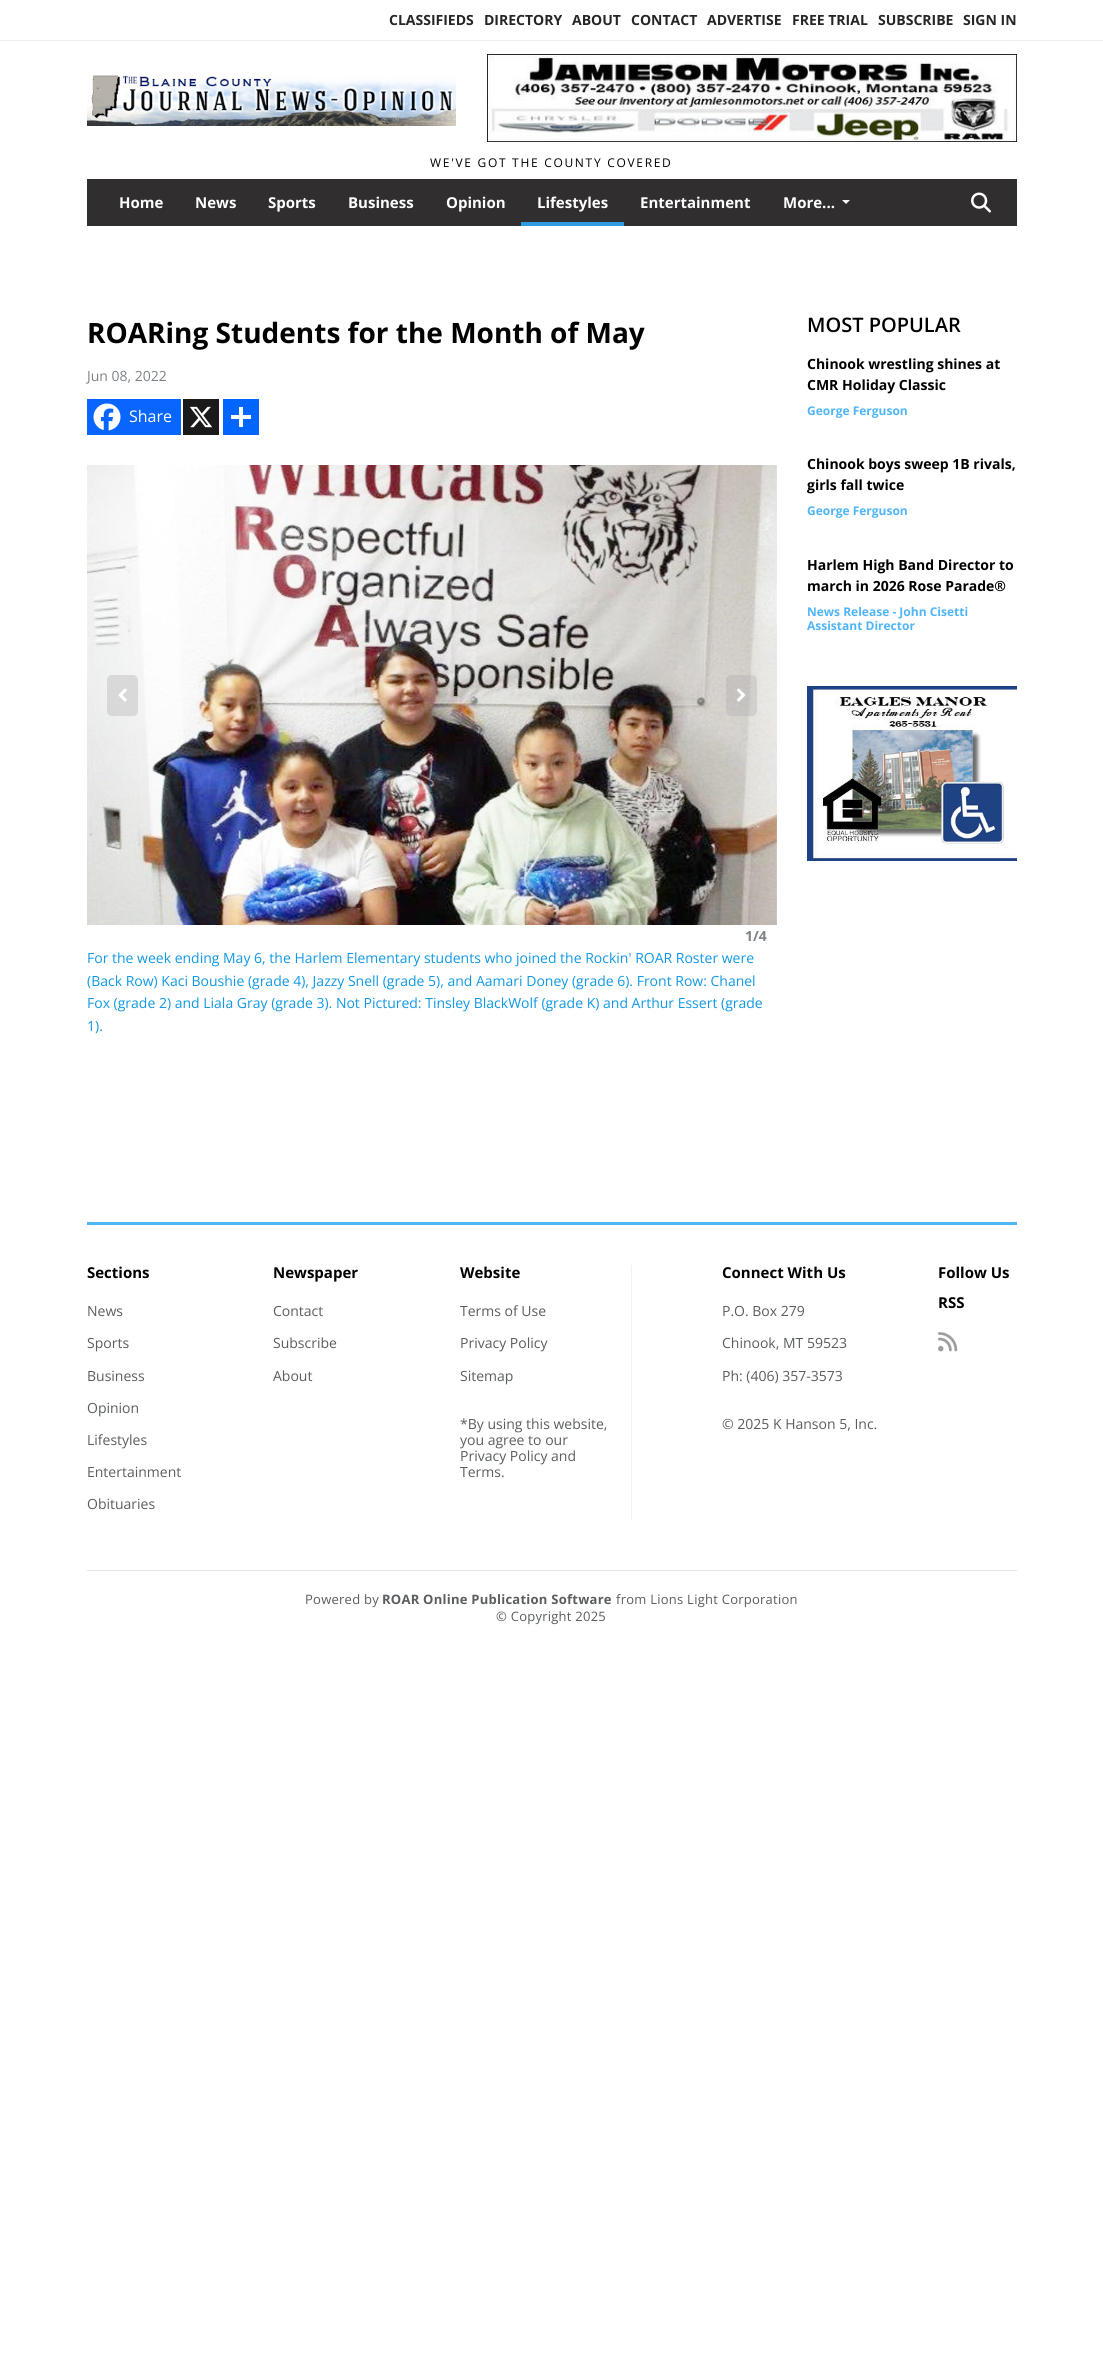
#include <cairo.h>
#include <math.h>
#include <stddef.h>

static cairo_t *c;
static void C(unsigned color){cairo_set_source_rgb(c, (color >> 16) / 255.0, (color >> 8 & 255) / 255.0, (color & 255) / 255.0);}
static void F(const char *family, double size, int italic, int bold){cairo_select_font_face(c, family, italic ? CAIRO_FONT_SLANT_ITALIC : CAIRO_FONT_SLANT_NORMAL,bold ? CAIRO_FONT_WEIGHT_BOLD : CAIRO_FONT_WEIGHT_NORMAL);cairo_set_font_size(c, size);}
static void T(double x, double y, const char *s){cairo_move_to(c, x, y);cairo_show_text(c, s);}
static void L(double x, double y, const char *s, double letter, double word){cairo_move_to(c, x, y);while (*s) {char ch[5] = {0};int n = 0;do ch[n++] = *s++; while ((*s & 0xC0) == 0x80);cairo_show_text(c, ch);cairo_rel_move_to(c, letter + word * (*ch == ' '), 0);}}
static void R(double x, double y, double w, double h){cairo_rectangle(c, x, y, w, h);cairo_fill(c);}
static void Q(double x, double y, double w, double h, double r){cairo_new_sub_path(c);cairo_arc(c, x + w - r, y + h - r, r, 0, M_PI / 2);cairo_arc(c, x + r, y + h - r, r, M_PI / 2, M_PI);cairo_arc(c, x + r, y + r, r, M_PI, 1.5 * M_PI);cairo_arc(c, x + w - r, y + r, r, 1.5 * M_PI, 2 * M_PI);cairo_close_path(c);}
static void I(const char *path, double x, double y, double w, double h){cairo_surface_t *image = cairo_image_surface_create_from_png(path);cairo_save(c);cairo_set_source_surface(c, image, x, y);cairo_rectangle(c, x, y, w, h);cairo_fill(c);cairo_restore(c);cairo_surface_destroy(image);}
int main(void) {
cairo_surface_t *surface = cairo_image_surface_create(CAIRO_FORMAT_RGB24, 1103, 2373);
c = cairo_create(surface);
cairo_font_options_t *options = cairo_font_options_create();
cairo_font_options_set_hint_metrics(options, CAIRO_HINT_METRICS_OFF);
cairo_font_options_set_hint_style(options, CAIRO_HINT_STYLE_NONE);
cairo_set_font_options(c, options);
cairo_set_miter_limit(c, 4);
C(0xffffff);
cairo_paint(c);
C(0xededed);
R(0,40,1103,1);
F("Open Sans",14,0,1);
C(0x262626);
T(389,25,"CLASSIFIEDS");
T(484,25,"DIRECTORY");
T(572,25,"ABOUT");
T(631,25,"CONTACT");
T(707,25,"ADVERTISE");
T(792,25,"FREE TRIAL");
T(878,25,"SUBSCRIBE");
T(963,25,"SIGN IN");
I("1.png",87,75,369,51);
I("2.png",487,54,530,88);
F("Open Sans",12,0,0);
C(0x000000);
L(430,167,"WE'VE GOT THE COUNTY COVERED",1.7,0);
C(0x312e2f);
R(87,179,930,47);
F("Open Sans",15,0,1);
C(0xffffff);
T(119,208,"Home");
T(195,208,"News");
T(268,208,"Sports");
T(348,208,"Business");
T(446,208,"Opinion");
T(537,208,"Lifestyles");
C(0x2e9ae0);
R(521,222,103,4);
C(0xffffff);
T(640,208,"Entertainment");
T(783,208,"More...");
cairo_new_path(c);
cairo_move_to(c,842,200);
cairo_line_to(c,850,200);
cairo_line_to(c,846,204);
cairo_close_path(c);
cairo_fill(c);
I("3.png",971,192,20,21);
F("Open Sans",28,0,1);
C(0x000000);
T(87,343,"ROARing Students for the Month of May");
F("Open Sans",14,0,0);
C(0x7c8387);
T(87,381,"Jun 08, 2022");
C(0x0866ff);
R(87,399,94,36);
I("4.png",93,403,28,28);
F("Open Sans",16,0,0);
C(0xffffff);
T(129,422,"Share");
C(0x1a1a1a);
R(183,399,36,36);
I("5.png",189,406,24,22);
C(0x0166ff);
R(223,399,36,36);
C(0xffffff);
R(239,407,4,20);
R(231,415,20,4);
I("8.png",87,465,690,460);
cairo_set_source_rgba(c,0.671,0.663,0.663,0.35);
Q(107,675,31,41,5);
cairo_fill(c);
I("6.png",118,688,9,14);
Q(726,675,31,41,5);
cairo_fill(c);
I("7.png",736,688,10,14);
F("Open Sans",14,0,1);
C(0x7c8387);
T(745,941,"1/4");
F("Open Sans",14,0,0);
C(0x1098e4);
T(87,963,"For the week ending May 6, the Harlem Elementary students who joined the Rockin' ROAR Roster were");
T(87,986,"(Back Row) Kaci Boushie (grade 4), Jazzy Snell (grade 5), and Aamari Doney (grade 6). Front Row: Chanel");
T(87,1008,"Fox (grade 2) and Liala Gray (grade 3). Not Pictured: Tinsley BlackWolf (grade K) and Arthur Essert (grade");
T(87,1031,"1).");
F("Open Sans SemiBold",20,0,0);
C(0x000000);
T(807,332,"MOST POPULAR");
F("Open Sans",14,0,1);
T(807,369,"Chinook wrestling shines at");
T(807,390,"CMR Holiday Classic");
F("Open Sans",12,0,1);
C(0x50b5f6);
T(807,415,"George Ferguson");
F("Open Sans",14,0,1);
C(0x000000);
T(807,469,"Chinook boys sweep 1B rivals,");
cairo_save(c);
cairo_rectangle(c,807,453,210,42);
cairo_clip(c);
T(807,490,"girls fall twice");
cairo_restore(c);
F("Open Sans",12,0,1);
C(0x50b5f6);
T(807,515,"George Ferguson");
F("Open Sans",14,0,1);
C(0x000000);
T(807,570,"Harlem High Band Director to");
T(807,591,"march in 2026 Rose Parade®");
F("Open Sans",12,0,1);
C(0x50b5f6);
T(807,616,"News Release - John Cisetti");
T(807,630,"Assistant Director");
I("9.png",807,686,210,175);
R(87,1222,930,3);
F("Open Sans",15,0,1);
C(0x000000);
T(87,1278,"Sections");
F("Open Sans",14,0,0);
C(0x5a5e60);
T(87,1316,"News");
T(87,1348,"Sports");
T(87,1381,"Business");
T(87,1413,"Opinion");
T(87,1445,"Lifestyles");
T(87,1477,"Entertainment");
T(87,1509,"Obituaries");
F("Open Sans",15,0,1);
C(0x000000);
T(273,1278,"Newspaper");
F("Open Sans",14,0,0);
C(0x5a5e60);
T(273,1316,"Contact");
T(273,1348,"Subscribe");
T(273,1381,"About");
F("Open Sans",15,0,1);
C(0x000000);
T(460,1278,"Website");
F("Open Sans",14,0,0);
C(0x5a5e60);
T(460,1316,"Terms of Use");
T(460,1348,"Privacy Policy");
T(460,1381,"Sitemap");
T(460,1429,"*By using this website,");
T(460,1445,"you agree to our");
T(460,1461,"Privacy Policy and");
T(460,1477,"Terms.");
C(0xf2f2f2);
R(631,1265,1,255);
F("Open Sans",15,0,1);
C(0x000000);
T(722,1278,"Connect With Us");
F("Open Sans",14,0,0);
C(0x5a5e60);
T(722,1316,"P.O. Box 279");
T(722,1348,"Chinook, MT 59523");
T(722,1381,"Ph: (406) 357-3573");
T(722,1429,"© 2025 K Hanson 5, Inc.");
F("Open Sans",15,0,1);
C(0x000000);
T(938,1278,"Follow Us");
T(938,1308,"RSS");
I("10.png",938,1332,20,20);
C(0xe6e6e6);
R(87,1570,930,1);
F("Open Sans",13,0,0);
C(0x5a5e60);
L(305,1604,"Powered by",.25,0);
F("Open Sans",13,0,1);
L(382,1604,"ROAR Online Publication Software",.25,0);
F("Open Sans",13,0,0);
L(616,1604,"from Lions Light Corporation",.25,0);
L(496,1621,"© Copyright 2025",.25,0);
cairo_surface_write_to_png(surface, "o.png");
cairo_font_options_destroy(options);
cairo_destroy(c);
cairo_surface_destroy(surface);
return 0;
}
